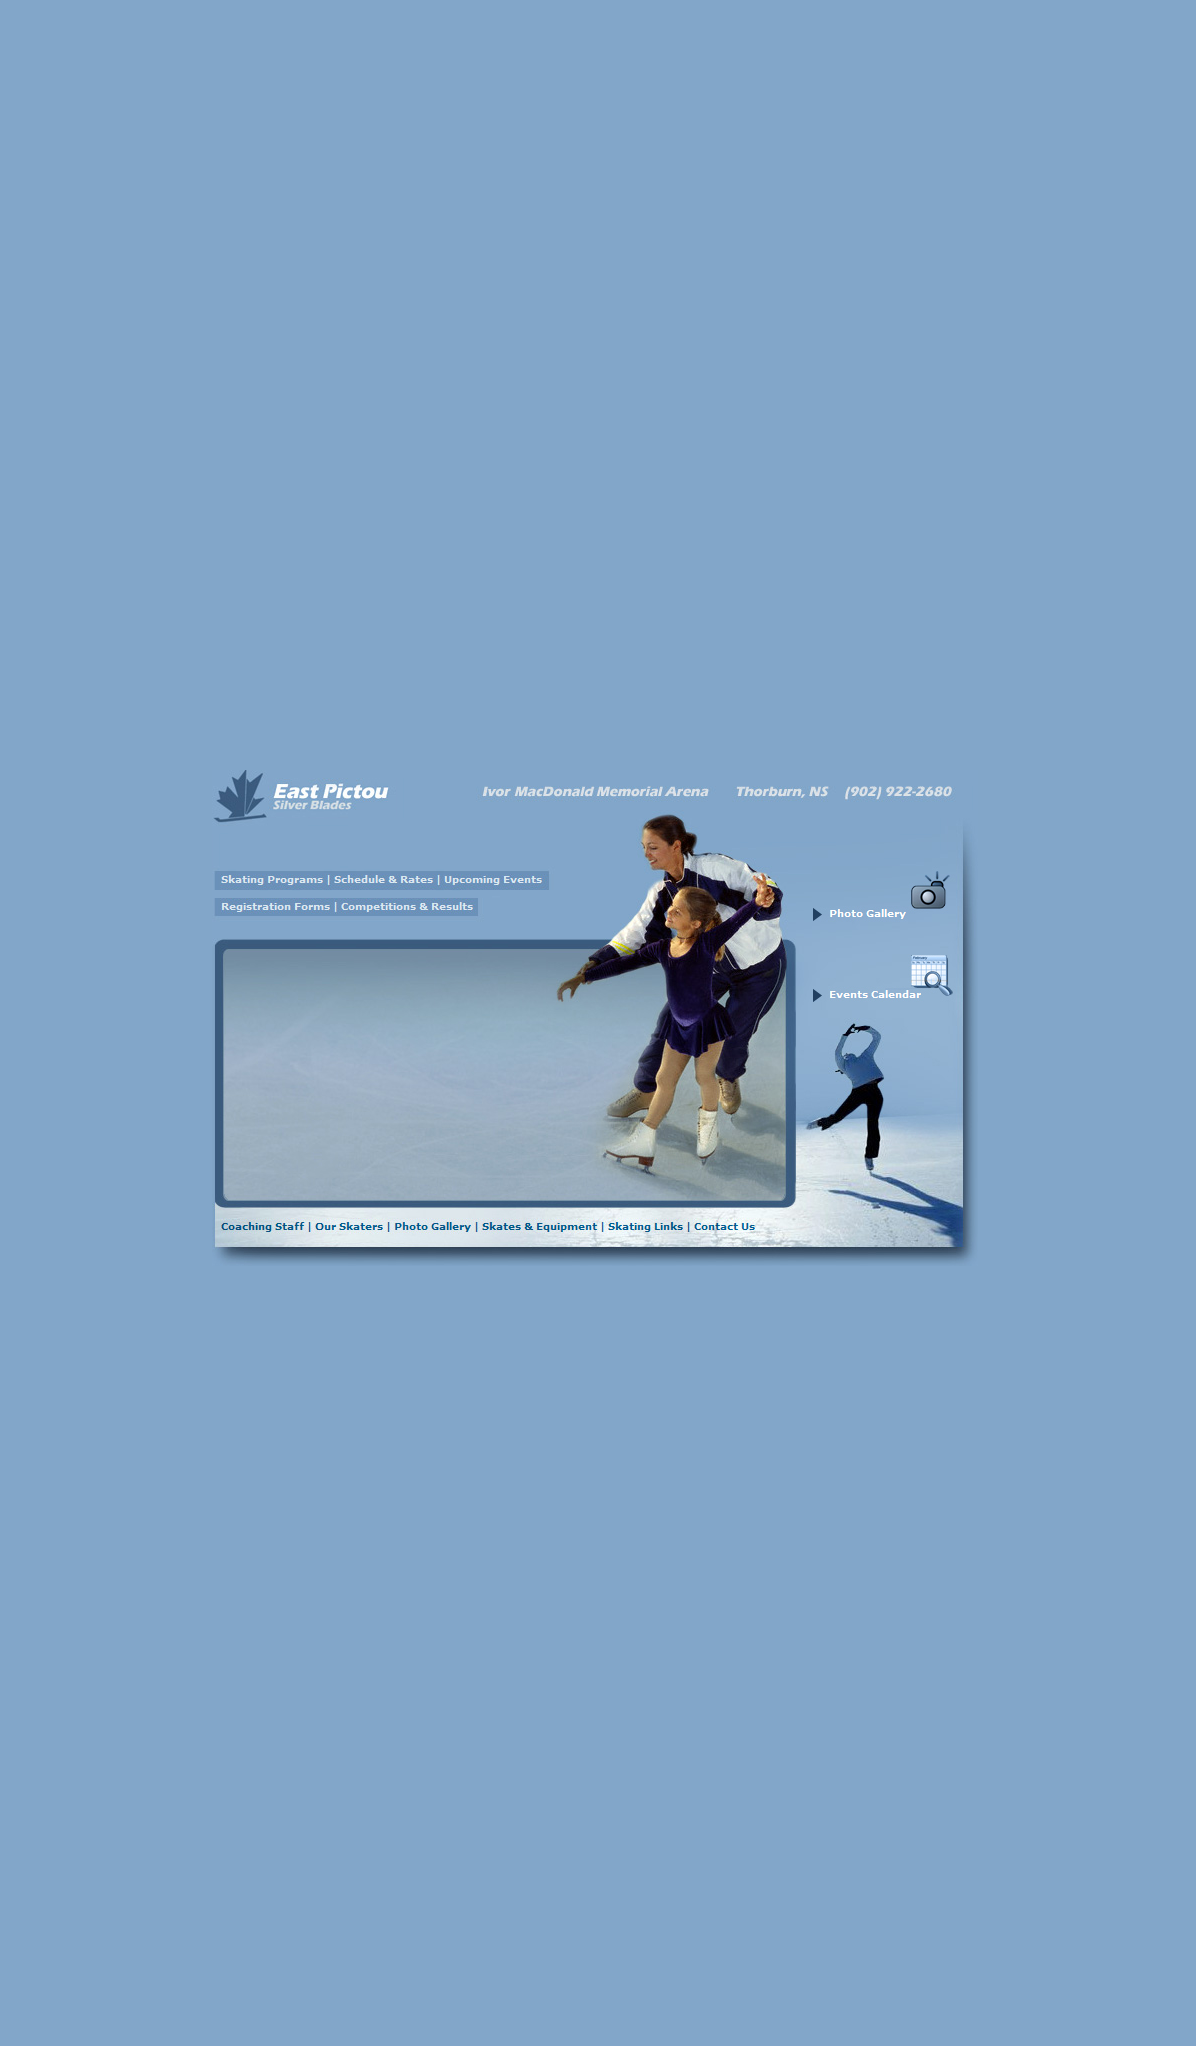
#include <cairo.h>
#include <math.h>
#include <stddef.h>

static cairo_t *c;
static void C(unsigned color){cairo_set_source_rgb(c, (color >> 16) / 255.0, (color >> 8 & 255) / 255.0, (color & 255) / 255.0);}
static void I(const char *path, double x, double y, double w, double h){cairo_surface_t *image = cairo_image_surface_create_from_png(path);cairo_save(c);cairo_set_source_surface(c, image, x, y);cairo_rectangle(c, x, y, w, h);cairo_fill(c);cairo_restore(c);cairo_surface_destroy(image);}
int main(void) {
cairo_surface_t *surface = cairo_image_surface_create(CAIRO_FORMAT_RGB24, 1196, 2046);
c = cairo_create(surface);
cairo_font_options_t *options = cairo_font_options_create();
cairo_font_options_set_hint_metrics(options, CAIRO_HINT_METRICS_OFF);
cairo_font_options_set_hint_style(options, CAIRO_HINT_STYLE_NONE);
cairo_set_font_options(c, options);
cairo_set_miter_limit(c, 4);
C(0x82a6c9);
cairo_paint(c);
I("1.png",212,770,766,496);
I("2.png",226,952,320,221);
cairo_surface_write_to_png(surface, "o.png");
cairo_font_options_destroy(options);
cairo_destroy(c);
cairo_surface_destroy(surface);
return 0;
}
